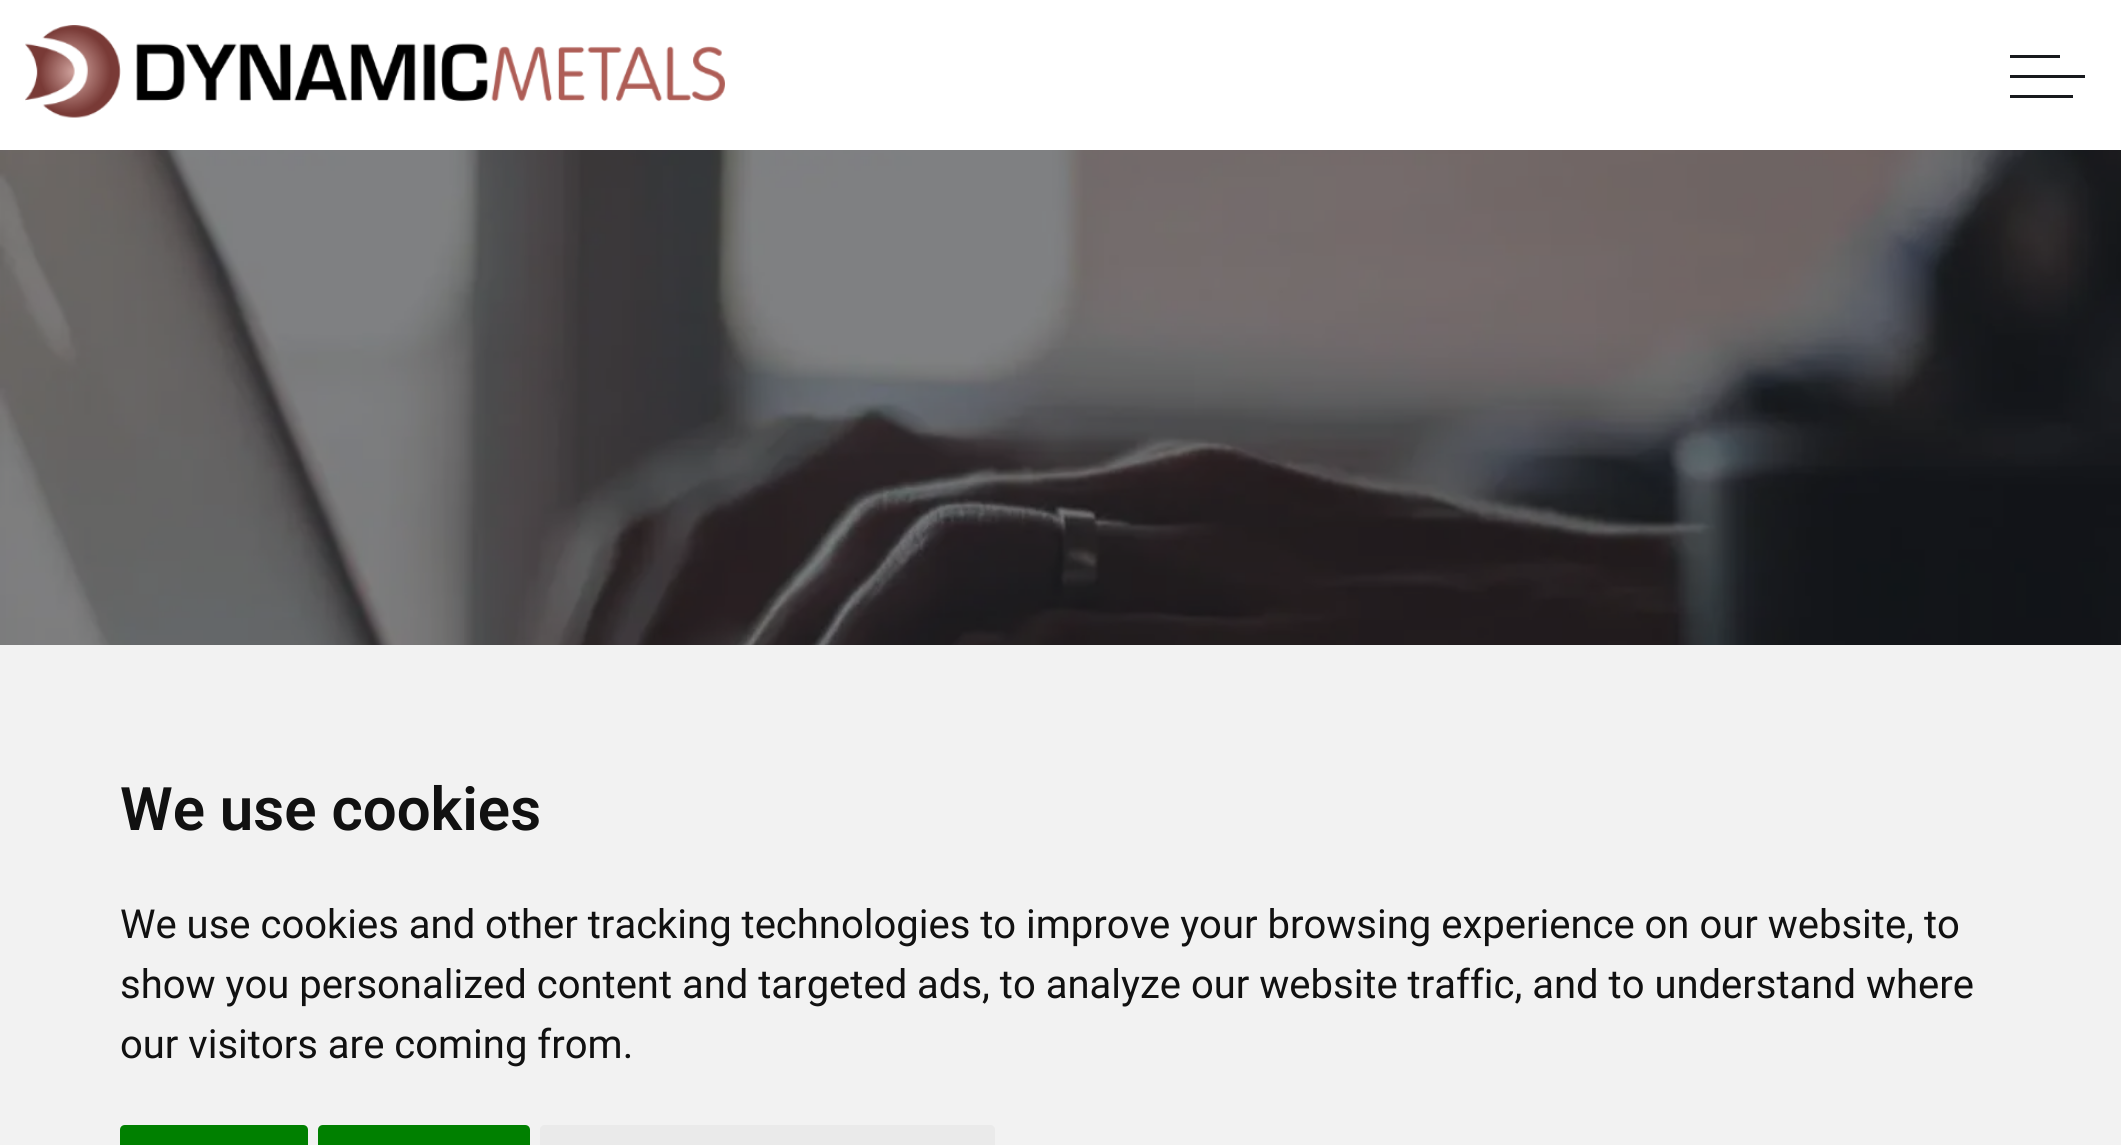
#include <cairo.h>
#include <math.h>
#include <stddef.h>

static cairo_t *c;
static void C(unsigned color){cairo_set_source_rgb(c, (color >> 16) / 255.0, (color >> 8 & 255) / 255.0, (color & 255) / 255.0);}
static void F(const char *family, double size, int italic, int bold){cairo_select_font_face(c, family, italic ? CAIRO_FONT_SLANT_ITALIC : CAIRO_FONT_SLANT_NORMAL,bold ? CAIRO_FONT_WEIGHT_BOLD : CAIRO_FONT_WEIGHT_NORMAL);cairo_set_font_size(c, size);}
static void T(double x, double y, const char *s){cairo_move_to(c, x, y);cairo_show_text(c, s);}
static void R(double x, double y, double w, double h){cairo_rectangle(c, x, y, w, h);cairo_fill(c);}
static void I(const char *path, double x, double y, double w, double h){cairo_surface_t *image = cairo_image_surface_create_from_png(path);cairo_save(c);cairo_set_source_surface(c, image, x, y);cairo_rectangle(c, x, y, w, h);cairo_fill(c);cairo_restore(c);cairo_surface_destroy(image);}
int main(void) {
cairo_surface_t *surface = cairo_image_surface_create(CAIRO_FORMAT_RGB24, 2121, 1145);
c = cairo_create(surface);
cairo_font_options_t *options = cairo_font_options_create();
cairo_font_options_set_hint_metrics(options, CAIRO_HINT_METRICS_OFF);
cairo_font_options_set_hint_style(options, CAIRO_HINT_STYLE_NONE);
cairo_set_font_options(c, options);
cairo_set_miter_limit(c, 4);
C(0xffffff);
cairo_paint(c);
I("1.png",25,25,700,93);
C(0x17191d);
R(2010,75,75,3);
R(2010,55,50,3);
R(2010,95,63,3);
I("2.png",0,150,2121,495);
C(0xf2f2f2);
R(0,645,2121,500);
F("Roboto SemiBold",60,0,0);
C(0x111111);
T(120,830,"We use cookies");
F("Roboto",40,0,0);
T(120,938,"We use cookies and other tracking technologies to improve your browsing experience on our website, to");
T(120,998,"show you personalized content and targeted ads, to analyze our website traffic, and to understand where");
T(120,1058,"our visitors are coming from.");
C(0x008000);
cairo_new_path(c);
cairo_move_to(c,125,1125);
cairo_line_to(c,303,1125);
cairo_curve_to(c,306,1125,308,1127,308,1130);
cairo_line_to(c,308,1145);
cairo_line_to(c,120,1145);
cairo_line_to(c,120,1130);
cairo_curve_to(c,120,1127,122,1125,125,1125);
cairo_close_path(c);
cairo_fill(c);
cairo_new_path(c);
cairo_move_to(c,323,1125);
cairo_line_to(c,525,1125);
cairo_curve_to(c,528,1125,530,1127,530,1130);
cairo_line_to(c,530,1145);
cairo_line_to(c,318,1145);
cairo_line_to(c,318,1130);
cairo_curve_to(c,318,1127,320,1125,323,1125);
cairo_close_path(c);
cairo_fill(c);
C(0xeaeaea);
cairo_new_path(c);
cairo_move_to(c,545,1125);
cairo_line_to(c,990,1125);
cairo_curve_to(c,993,1125,995,1127,995,1130);
cairo_line_to(c,995,1145);
cairo_line_to(c,540,1145);
cairo_line_to(c,540,1130);
cairo_curve_to(c,540,1127,542,1125,545,1125);
cairo_close_path(c);
cairo_fill(c);
cairo_surface_write_to_png(surface, "o.png");
cairo_font_options_destroy(options);
cairo_destroy(c);
cairo_surface_destroy(surface);
return 0;
}
